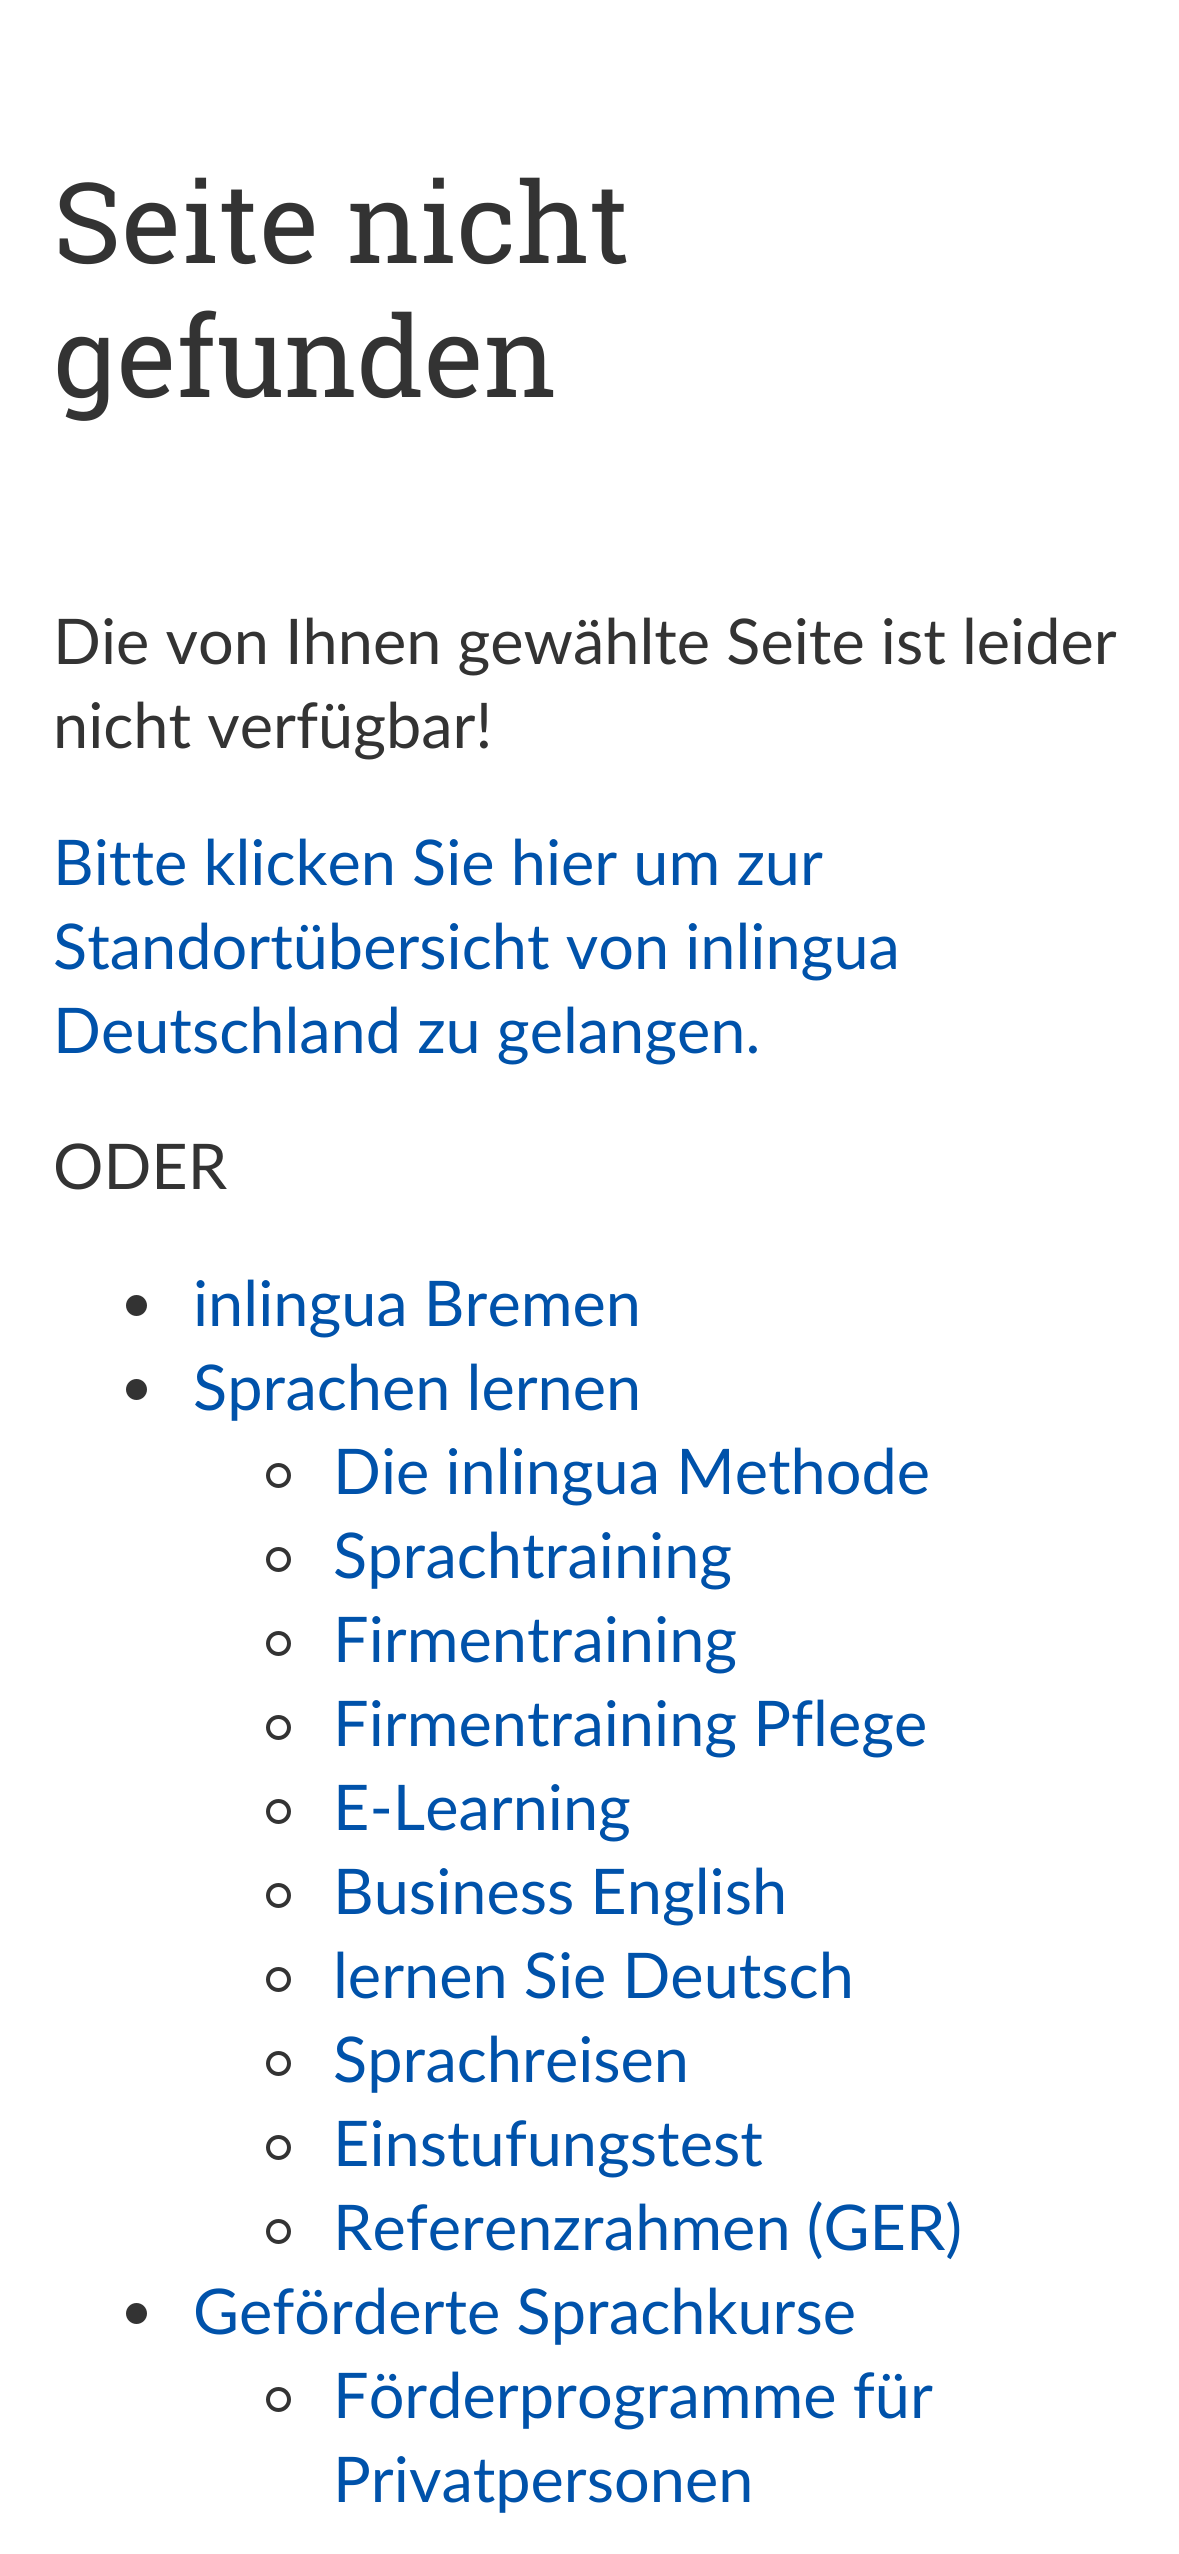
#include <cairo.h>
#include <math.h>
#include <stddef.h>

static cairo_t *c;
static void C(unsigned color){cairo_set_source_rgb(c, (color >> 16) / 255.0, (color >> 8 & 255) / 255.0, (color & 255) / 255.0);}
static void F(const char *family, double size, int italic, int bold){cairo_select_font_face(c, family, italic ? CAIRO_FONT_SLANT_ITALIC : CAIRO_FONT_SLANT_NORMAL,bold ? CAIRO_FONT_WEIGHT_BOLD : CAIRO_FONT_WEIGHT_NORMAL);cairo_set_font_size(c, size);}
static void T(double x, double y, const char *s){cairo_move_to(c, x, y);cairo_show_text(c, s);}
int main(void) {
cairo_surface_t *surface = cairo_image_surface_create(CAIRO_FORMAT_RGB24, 1179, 2554);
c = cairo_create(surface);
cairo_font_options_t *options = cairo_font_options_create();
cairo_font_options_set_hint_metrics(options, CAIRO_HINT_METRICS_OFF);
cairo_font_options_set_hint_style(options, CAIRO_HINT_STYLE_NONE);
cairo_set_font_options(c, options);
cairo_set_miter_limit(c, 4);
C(0xffffff);
cairo_paint(c);
F("Roboto Slab",112,0,0);
C(0x333333);
T(53,263,"Seite nicht");
T(53,397,"gefunden");
F("Lato",63,0,0);
T(53,664,"Die von Ihnen gewählte Seite ist leider");
T(53,748,"nicht verfügbar!");
C(0x0052aa);
T(53,885,"Bitte klicken Sie hier um zur");
T(53,969,"Standortübersicht von inlingua");
T(53,1053,"Deutschland zu gelangen.");
C(0x333333);
T(53,1189,"ODER");
cairo_new_path(c);
cairo_arc(c,136.5,1305.5,10.5,0,2 * M_PI);
cairo_fill(c);
C(0x0052aa);
T(193,1326,"inlingua Bremen");
C(0x333333);
cairo_new_path(c);
cairo_arc(c,136.5,1389.5,10.5,0,2 * M_PI);
cairo_fill(c);
C(0x0052aa);
T(193,1410,"Sprachen lernen");
cairo_new_path(c);
cairo_arc(c,278.5,1475.5,10.5,0,2 * M_PI);
C(0x333333);
cairo_set_line_width(c,4);
cairo_stroke(c);
C(0x0052aa);
T(333,1494,"Die inlingua Methode");
cairo_new_path(c);
cairo_arc(c,278.5,1559.5,10.5,0,2 * M_PI);
C(0x333333);
cairo_stroke(c);
C(0x0052aa);
T(333,1578,"Sprachtraining");
cairo_new_path(c);
cairo_arc(c,278.5,1643.5,10.5,0,2 * M_PI);
C(0x333333);
cairo_stroke(c);
C(0x0052aa);
T(333,1662,"Firmentraining");
cairo_new_path(c);
cairo_arc(c,278.5,1727.5,10.5,0,2 * M_PI);
C(0x333333);
cairo_stroke(c);
C(0x0052aa);
T(333,1746,"Firmentraining Pflege");
cairo_new_path(c);
cairo_arc(c,278.5,1811.5,10.5,0,2 * M_PI);
C(0x333333);
cairo_stroke(c);
C(0x0052aa);
T(333,1830,"E-Learning");
cairo_new_path(c);
cairo_arc(c,278.5,1895.5,10.5,0,2 * M_PI);
C(0x333333);
cairo_stroke(c);
C(0x0052aa);
T(333,1914,"Business English");
cairo_new_path(c);
cairo_arc(c,278.5,1979.5,10.5,0,2 * M_PI);
C(0x333333);
cairo_stroke(c);
C(0x0052aa);
T(333,1998,"lernen Sie Deutsch");
cairo_new_path(c);
cairo_arc(c,278.5,2063.5,10.5,0,2 * M_PI);
C(0x333333);
cairo_stroke(c);
C(0x0052aa);
T(333,2082,"Sprachreisen");
cairo_new_path(c);
cairo_arc(c,278.5,2147.5,10.5,0,2 * M_PI);
C(0x333333);
cairo_stroke(c);
C(0x0052aa);
T(333,2166,"Einstufungstest");
cairo_new_path(c);
cairo_arc(c,278.5,2231.5,10.5,0,2 * M_PI);
C(0x333333);
cairo_stroke(c);
C(0x0052aa);
T(333,2250,"Referenzrahmen (GER)");
C(0x333333);
cairo_new_path(c);
cairo_arc(c,136.5,2313.5,10.5,0,2 * M_PI);
cairo_fill(c);
C(0x0052aa);
T(193,2334,"Geförderte Sprachkurse");
cairo_new_path(c);
cairo_arc(c,278.5,2399.5,10.5,0,2 * M_PI);
C(0x333333);
cairo_stroke(c);
C(0x0052aa);
T(333,2418,"Förderprogramme für");
T(333,2502,"Privatpersonen");
cairo_surface_write_to_png(surface, "o.png");
cairo_font_options_destroy(options);
cairo_destroy(c);
cairo_surface_destroy(surface);
return 0;
}
